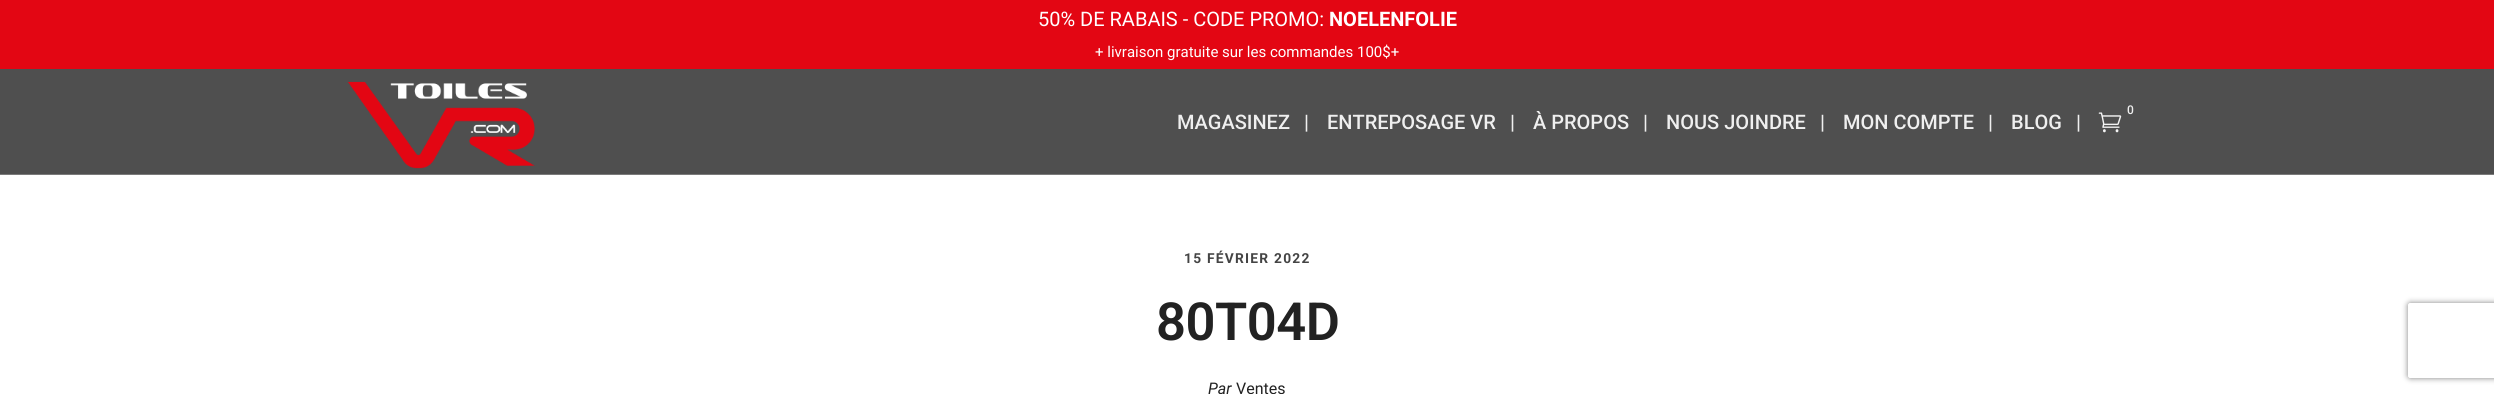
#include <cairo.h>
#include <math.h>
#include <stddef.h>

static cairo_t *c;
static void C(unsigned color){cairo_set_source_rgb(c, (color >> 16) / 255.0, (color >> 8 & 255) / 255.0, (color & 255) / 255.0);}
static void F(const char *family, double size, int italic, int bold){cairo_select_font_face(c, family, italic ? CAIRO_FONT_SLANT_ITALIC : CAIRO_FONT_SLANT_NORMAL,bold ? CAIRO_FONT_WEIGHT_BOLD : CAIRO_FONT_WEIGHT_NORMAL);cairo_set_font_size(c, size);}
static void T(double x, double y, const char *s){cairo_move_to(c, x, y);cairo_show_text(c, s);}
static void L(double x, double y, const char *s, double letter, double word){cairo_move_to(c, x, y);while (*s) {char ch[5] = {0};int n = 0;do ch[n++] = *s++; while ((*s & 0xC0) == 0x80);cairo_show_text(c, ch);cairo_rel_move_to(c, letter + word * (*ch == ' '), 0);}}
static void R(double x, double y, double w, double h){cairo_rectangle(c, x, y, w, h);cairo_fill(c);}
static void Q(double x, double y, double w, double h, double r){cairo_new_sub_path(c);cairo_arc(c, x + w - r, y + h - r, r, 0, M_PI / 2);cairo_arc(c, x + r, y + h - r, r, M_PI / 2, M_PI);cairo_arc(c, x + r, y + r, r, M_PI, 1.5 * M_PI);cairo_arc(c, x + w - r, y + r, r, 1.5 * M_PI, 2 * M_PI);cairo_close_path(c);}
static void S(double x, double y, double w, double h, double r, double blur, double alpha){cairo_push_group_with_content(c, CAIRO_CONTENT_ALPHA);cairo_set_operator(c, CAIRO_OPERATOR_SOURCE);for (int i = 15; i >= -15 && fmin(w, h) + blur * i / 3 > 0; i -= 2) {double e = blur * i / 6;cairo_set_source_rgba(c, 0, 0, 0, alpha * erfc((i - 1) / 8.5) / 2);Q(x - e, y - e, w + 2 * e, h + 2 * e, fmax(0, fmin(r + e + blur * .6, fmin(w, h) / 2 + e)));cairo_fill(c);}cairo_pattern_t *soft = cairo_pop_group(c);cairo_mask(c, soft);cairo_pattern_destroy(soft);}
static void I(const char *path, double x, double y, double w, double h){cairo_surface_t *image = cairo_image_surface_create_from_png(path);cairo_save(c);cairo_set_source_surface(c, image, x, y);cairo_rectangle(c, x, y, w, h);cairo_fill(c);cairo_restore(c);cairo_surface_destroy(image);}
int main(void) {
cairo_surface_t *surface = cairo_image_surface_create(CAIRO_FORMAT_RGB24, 2494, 394);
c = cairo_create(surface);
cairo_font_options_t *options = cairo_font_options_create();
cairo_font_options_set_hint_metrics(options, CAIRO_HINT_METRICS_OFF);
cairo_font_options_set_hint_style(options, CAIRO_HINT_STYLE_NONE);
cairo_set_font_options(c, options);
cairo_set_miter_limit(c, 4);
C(0xffffff);
cairo_paint(c);
C(0xe30613);
R(0,0,2494,69);
F("Roboto",20,0,0);
C(0xffffff);
T(1038,26,"50% DE RABAIS - CODE PROMO:");
F("Roboto",20,0,1);
T(1329,26,"NOELENFOLIE");
F("Roboto",15,0,0);
T(1095,57,"+ livraison gratuite sur les commandes 100$+");
C(0x4f4f4f);
R(0,69,2494,105);
C(0x7a7a7a);
R(0,174,2494,1);
I("1.png",347,81,188,88);
F("Roboto Medium",20,0,0);
C(0xefefef);
T(1177,129,"MAGASINEZ");
T(1304,129,"|");
T(1327,129,"ENTREPOSAGE VR");
T(1510,129,"|");
T(1533,129,"À PROPOS");
T(1643,129,"|");
T(1666,129,"NOUS JOINDRE");
T(1820,129,"|");
T(1843,129,"MON COMPTE");
T(1988,129,"|");
T(2011,129,"BLOG");
F("Roboto Medium",12,0,0);
T(2127,114,"0");
I("2.png",2098,112,24,21);
F("Roboto Medium",20,0,0);
T(2076,129,"|");
F("Roboto",13.75,0,1);
C(0x444444);
L(1184,263,"15 FÉVRIER 2022",1.25,0);
F("Roboto SemiBold",52.5,0,0);
C(0x222222);
L(1156,340,"80T04D",-.5,0);
F("Roboto",16,1,0);
T(1208,394,"Par");
F("Roboto",16,0,0);
T(1236,394,"Ventes");
cairo_save(c);
cairo_set_fill_rule(c,CAIRO_FILL_RULE_EVEN_ODD);
cairo_new_path(c);
cairo_move_to(c,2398,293);
cairo_line_to(c,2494,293);
cairo_line_to(c,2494,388);
cairo_line_to(c,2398,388);
cairo_close_path(c);
cairo_move_to(c,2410.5,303);
cairo_line_to(c,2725.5,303);
cairo_curve_to(c,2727,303,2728,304,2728,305.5);
cairo_line_to(c,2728,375.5);
cairo_curve_to(c,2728,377,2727,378,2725.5,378);
cairo_line_to(c,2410.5,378);
cairo_curve_to(c,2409,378,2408,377,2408,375.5);
cairo_line_to(c,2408,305.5);
cairo_curve_to(c,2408,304,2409,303,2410.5,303);
cairo_close_path(c);
cairo_clip(c);
C(0x808080);
S(2408,303,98,75,2.5,3,1);
cairo_restore(c);
cairo_surface_write_to_png(surface, "o.png");
cairo_font_options_destroy(options);
cairo_destroy(c);
cairo_surface_destroy(surface);
return 0;
}
